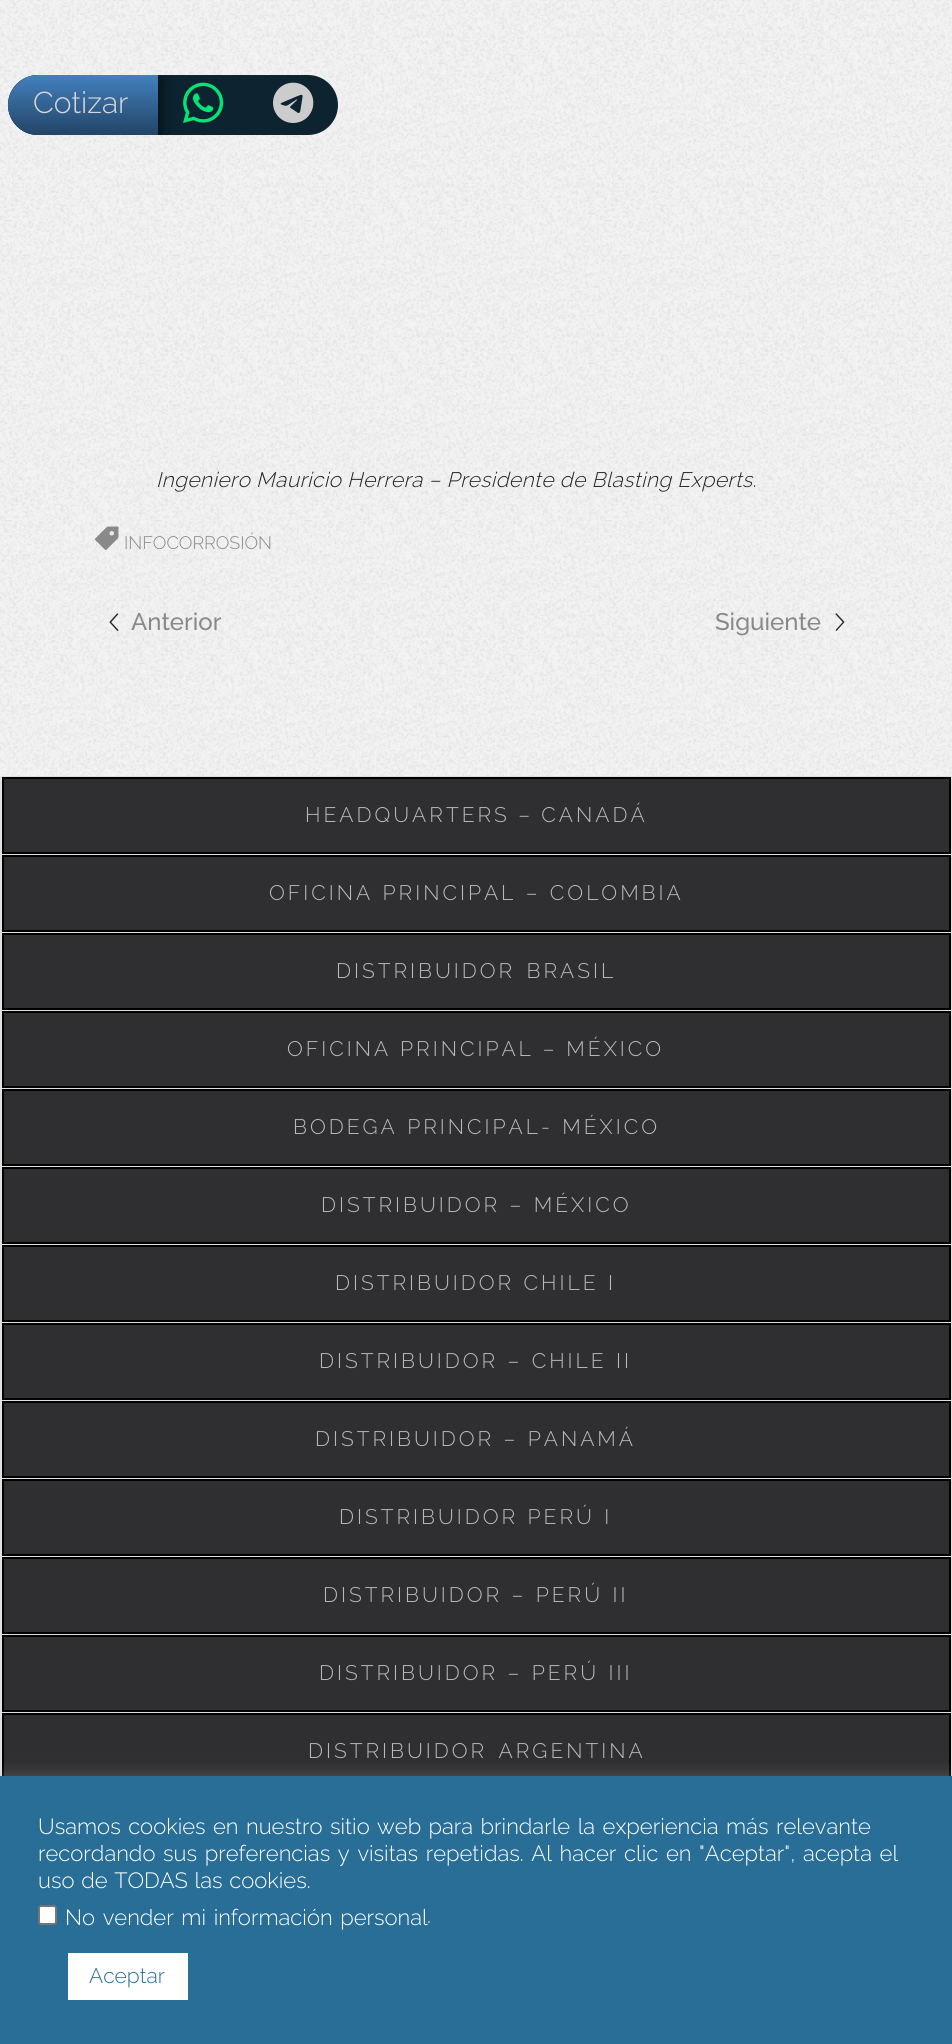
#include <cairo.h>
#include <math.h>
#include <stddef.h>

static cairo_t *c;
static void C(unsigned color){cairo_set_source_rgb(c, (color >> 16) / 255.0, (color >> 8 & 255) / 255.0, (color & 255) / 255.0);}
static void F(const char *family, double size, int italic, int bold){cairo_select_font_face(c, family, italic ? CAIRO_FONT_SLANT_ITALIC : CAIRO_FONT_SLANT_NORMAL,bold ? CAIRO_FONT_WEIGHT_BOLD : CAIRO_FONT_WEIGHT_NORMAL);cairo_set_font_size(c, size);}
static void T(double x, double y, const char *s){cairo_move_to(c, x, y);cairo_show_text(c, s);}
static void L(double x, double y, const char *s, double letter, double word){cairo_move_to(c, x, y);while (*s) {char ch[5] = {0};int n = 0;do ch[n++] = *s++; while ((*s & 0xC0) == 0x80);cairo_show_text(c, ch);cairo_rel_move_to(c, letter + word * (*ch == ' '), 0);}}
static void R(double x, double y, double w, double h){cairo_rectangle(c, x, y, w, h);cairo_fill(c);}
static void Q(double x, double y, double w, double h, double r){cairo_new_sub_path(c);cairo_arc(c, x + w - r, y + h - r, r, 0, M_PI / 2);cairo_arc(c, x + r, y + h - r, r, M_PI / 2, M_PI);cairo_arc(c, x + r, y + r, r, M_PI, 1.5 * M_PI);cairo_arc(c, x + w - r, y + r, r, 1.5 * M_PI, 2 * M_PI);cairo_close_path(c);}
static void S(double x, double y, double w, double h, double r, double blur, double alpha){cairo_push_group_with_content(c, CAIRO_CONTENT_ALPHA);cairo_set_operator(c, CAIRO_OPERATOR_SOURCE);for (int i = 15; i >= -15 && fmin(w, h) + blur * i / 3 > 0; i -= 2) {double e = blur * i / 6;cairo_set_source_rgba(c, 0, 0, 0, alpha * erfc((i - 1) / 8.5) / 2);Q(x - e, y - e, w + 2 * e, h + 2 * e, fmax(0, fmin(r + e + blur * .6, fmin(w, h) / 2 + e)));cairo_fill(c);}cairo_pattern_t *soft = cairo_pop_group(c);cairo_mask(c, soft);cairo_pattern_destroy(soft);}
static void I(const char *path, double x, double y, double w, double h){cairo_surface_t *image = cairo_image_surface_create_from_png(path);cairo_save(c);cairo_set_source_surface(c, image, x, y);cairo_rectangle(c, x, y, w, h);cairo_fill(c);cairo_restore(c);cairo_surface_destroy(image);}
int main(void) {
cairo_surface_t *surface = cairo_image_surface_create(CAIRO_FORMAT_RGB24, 952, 2044);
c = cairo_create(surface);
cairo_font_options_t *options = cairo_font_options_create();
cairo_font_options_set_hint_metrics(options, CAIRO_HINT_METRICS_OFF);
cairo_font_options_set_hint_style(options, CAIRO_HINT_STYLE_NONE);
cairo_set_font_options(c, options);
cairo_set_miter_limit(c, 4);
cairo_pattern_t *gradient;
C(0xeeeeee);
cairo_paint(c);
I("1.png",0,0,952,776);
C(0x0d2330);
Q(8,75,330,60,30);
cairo_fill(c);
cairo_save(c);
Q(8,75,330,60,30);
cairo_clip(c);
C(0x030303);
S(12,80,150,60,0,7,.6);
cairo_restore(c);
gradient = cairo_pattern_create_linear(7.5,75,7.5,135);
cairo_pattern_add_color_stop_rgba(gradient,0,0.259,0.506,0.745,1);
cairo_pattern_add_color_stop_rgba(gradient,1,0.137,0.267,0.4,1);
cairo_set_source(c,gradient);
cairo_pattern_destroy(gradient);
cairo_new_path(c);
cairo_move_to(c,38,75);
cairo_line_to(c,158,75);
cairo_line_to(c,158,135);
cairo_line_to(c,38,135);
cairo_curve_to(c,21.5,135,8,121.5,8,105);
cairo_curve_to(c,8,88.5,21.5,75,38,75);
cairo_close_path(c);
cairo_fill(c);
F("Raleway Light",30,0,0);
C(0xd9d9d9);
T(33,113,"Cotizar");
I("2.png",183,82,41,41);
I("3.png",273,82,41,41);
F("Raleway Light",21,1,0);
C(0x212529);
L(156,487,"Ingeniero Mauricio Herrera – Presidente de Blasting Experts.",.42,0);
I("4.png",95,526,24,24);
F("Raleway Light",18,0,0);
C(0x898989);
T(124,549,"INFOCORROSIÓN");
I("5.png",109,613,10,18);
F("Raleway Medium",24,0,0);
T(131,630,"Anterior");
T(715,630,"Siguiente");
I("6.png",835,613,10,18);
C(0xffffff);
R(0,776,952,1000);
C(0xdfdfdf);
cairo_new_path(c);
cairo_move_to(c,0,776);
cairo_line_to(c,952,776);
cairo_line_to(c,951,777);
cairo_line_to(c,2,777);
cairo_close_path(c);
cairo_fill(c);
cairo_set_source_rgba(c,0,0,0,0.12);
cairo_new_path(c);
cairo_move_to(c,952,776);
cairo_line_to(c,952,854);
cairo_line_to(c,951,854);
cairo_line_to(c,951,777);
cairo_close_path(c);
cairo_fill(c);
cairo_new_path(c);
cairo_move_to(c,0,854);
cairo_line_to(c,0,776);
cairo_line_to(c,2,777);
cairo_line_to(c,2,854);
cairo_close_path(c);
cairo_fill(c);
C(0x2f2f31);
cairo_rectangle(c,3,778,947,75);
cairo_fill_preserve(c);
C(0x000000);
cairo_stroke(c);
F("Raleway Light",21,0,0);
C(0xb9b9b9);
L(305,822,"HEADQUARTERS – CANADÁ",3,0);
C(0xdfdfdf);
cairo_new_path(c);
cairo_move_to(c,0,854);
cairo_line_to(c,952,854);
cairo_line_to(c,951,855);
cairo_line_to(c,2,855);
cairo_close_path(c);
cairo_fill(c);
cairo_set_source_rgba(c,0,0,0,0.12);
cairo_new_path(c);
cairo_move_to(c,952,854);
cairo_line_to(c,952,932);
cairo_line_to(c,951,932);
cairo_line_to(c,951,855);
cairo_close_path(c);
cairo_fill(c);
cairo_new_path(c);
cairo_move_to(c,0,932);
cairo_line_to(c,0,854);
cairo_line_to(c,2,855);
cairo_line_to(c,2,932);
cairo_close_path(c);
cairo_fill(c);
C(0x2f2f31);
cairo_rectangle(c,3,856,947,75);
cairo_fill_preserve(c);
C(0x000000);
cairo_stroke(c);
C(0xb9b9b9);
L(269,900,"OFICINA PRINCIPAL – COLOMBIA",3,1);
C(0xdfdfdf);
cairo_new_path(c);
cairo_move_to(c,0,932);
cairo_line_to(c,952,932);
cairo_line_to(c,951,933);
cairo_line_to(c,2,933);
cairo_close_path(c);
cairo_fill(c);
cairo_set_source_rgba(c,0,0,0,0.12);
cairo_new_path(c);
cairo_move_to(c,952,932);
cairo_line_to(c,952,1010);
cairo_line_to(c,951,1010);
cairo_line_to(c,951,933);
cairo_close_path(c);
cairo_fill(c);
cairo_new_path(c);
cairo_move_to(c,0,1010);
cairo_line_to(c,0,932);
cairo_line_to(c,2,933);
cairo_line_to(c,2,1010);
cairo_close_path(c);
cairo_fill(c);
C(0x2f2f31);
cairo_rectangle(c,3,934,947,75);
cairo_fill_preserve(c);
C(0x000000);
cairo_stroke(c);
C(0xb9b9b9);
L(336,978,"DISTRIBUIDOR BRASIL",3,3);
C(0xdfdfdf);
cairo_new_path(c);
cairo_move_to(c,0,1010);
cairo_line_to(c,952,1010);
cairo_line_to(c,951,1011);
cairo_line_to(c,2,1011);
cairo_close_path(c);
cairo_fill(c);
cairo_set_source_rgba(c,0,0,0,0.12);
cairo_new_path(c);
cairo_move_to(c,952,1010);
cairo_line_to(c,952,1088);
cairo_line_to(c,951,1088);
cairo_line_to(c,951,1011);
cairo_close_path(c);
cairo_fill(c);
cairo_new_path(c);
cairo_move_to(c,0,1088);
cairo_line_to(c,0,1010);
cairo_line_to(c,2,1011);
cairo_line_to(c,2,1088);
cairo_close_path(c);
cairo_fill(c);
C(0x2f2f31);
cairo_rectangle(c,3,1012,947,75);
cairo_fill_preserve(c);
C(0x000000);
cairo_stroke(c);
C(0xb9b9b9);
L(287,1056,"OFICINA PRINCIPAL – MÉXICO",3,.5);
C(0xdfdfdf);
cairo_new_path(c);
cairo_move_to(c,0,1088);
cairo_line_to(c,952,1088);
cairo_line_to(c,951,1089);
cairo_line_to(c,2,1089);
cairo_close_path(c);
cairo_fill(c);
cairo_set_source_rgba(c,0,0,0,0.12);
cairo_new_path(c);
cairo_move_to(c,952,1088);
cairo_line_to(c,952,1166);
cairo_line_to(c,951,1166);
cairo_line_to(c,951,1089);
cairo_close_path(c);
cairo_fill(c);
cairo_new_path(c);
cairo_move_to(c,0,1166);
cairo_line_to(c,0,1088);
cairo_line_to(c,2,1089);
cairo_line_to(c,2,1166);
cairo_close_path(c);
cairo_fill(c);
C(0x2f2f31);
cairo_rectangle(c,3,1090,947,75);
cairo_fill_preserve(c);
C(0x000000);
cairo_stroke(c);
C(0xb9b9b9);
L(293,1134,"BODEGA PRINCIPAL- MÉXICO",3,1);
C(0xdfdfdf);
cairo_new_path(c);
cairo_move_to(c,0,1166);
cairo_line_to(c,952,1166);
cairo_line_to(c,951,1167);
cairo_line_to(c,2,1167);
cairo_close_path(c);
cairo_fill(c);
cairo_set_source_rgba(c,0,0,0,0.12);
cairo_new_path(c);
cairo_move_to(c,952,1166);
cairo_line_to(c,952,1244);
cairo_line_to(c,951,1244);
cairo_line_to(c,951,1167);
cairo_close_path(c);
cairo_fill(c);
cairo_new_path(c);
cairo_move_to(c,0,1244);
cairo_line_to(c,0,1166);
cairo_line_to(c,2,1167);
cairo_line_to(c,2,1244);
cairo_close_path(c);
cairo_fill(c);
C(0x2f2f31);
cairo_rectangle(c,3,1168,947,75);
cairo_fill_preserve(c);
C(0x000000);
cairo_stroke(c);
C(0xb9b9b9);
L(321,1212,"DISTRIBUIDOR – MÉXICO",3,1);
C(0xdfdfdf);
cairo_new_path(c);
cairo_move_to(c,0,1244);
cairo_line_to(c,952,1244);
cairo_line_to(c,951,1245);
cairo_line_to(c,2,1245);
cairo_close_path(c);
cairo_fill(c);
cairo_set_source_rgba(c,0,0,0,0.12);
cairo_new_path(c);
cairo_move_to(c,952,1244);
cairo_line_to(c,952,1322);
cairo_line_to(c,951,1322);
cairo_line_to(c,951,1245);
cairo_close_path(c);
cairo_fill(c);
cairo_new_path(c);
cairo_move_to(c,0,1322);
cairo_line_to(c,0,1244);
cairo_line_to(c,2,1245);
cairo_line_to(c,2,1322);
cairo_close_path(c);
cairo_fill(c);
C(0x2f2f31);
cairo_rectangle(c,3,1246,947,75);
cairo_fill_preserve(c);
C(0x000000);
cairo_stroke(c);
C(0xb9b9b9);
L(335,1290,"DISTRIBUIDOR CHILE I",3,1);
C(0xdfdfdf);
cairo_new_path(c);
cairo_move_to(c,0,1322);
cairo_line_to(c,952,1322);
cairo_line_to(c,951,1323);
cairo_line_to(c,2,1323);
cairo_close_path(c);
cairo_fill(c);
cairo_set_source_rgba(c,0,0,0,0.12);
cairo_new_path(c);
cairo_move_to(c,952,1322);
cairo_line_to(c,952,1400);
cairo_line_to(c,951,1400);
cairo_line_to(c,951,1323);
cairo_close_path(c);
cairo_fill(c);
cairo_new_path(c);
cairo_move_to(c,0,1400);
cairo_line_to(c,0,1322);
cairo_line_to(c,2,1323);
cairo_line_to(c,2,1400);
cairo_close_path(c);
cairo_fill(c);
C(0x2f2f31);
cairo_rectangle(c,3,1324,947,75);
cairo_fill_preserve(c);
C(0x000000);
cairo_stroke(c);
C(0xb9b9b9);
L(319,1368,"DISTRIBUIDOR – CHILE II",3,1);
C(0xdfdfdf);
cairo_new_path(c);
cairo_move_to(c,0,1400);
cairo_line_to(c,952,1400);
cairo_line_to(c,951,1401);
cairo_line_to(c,2,1401);
cairo_close_path(c);
cairo_fill(c);
cairo_set_source_rgba(c,0,0,0,0.12);
cairo_new_path(c);
cairo_move_to(c,952,1400);
cairo_line_to(c,952,1478);
cairo_line_to(c,951,1478);
cairo_line_to(c,951,1401);
cairo_close_path(c);
cairo_fill(c);
cairo_new_path(c);
cairo_move_to(c,0,1478);
cairo_line_to(c,0,1400);
cairo_line_to(c,2,1401);
cairo_line_to(c,2,1478);
cairo_close_path(c);
cairo_fill(c);
C(0x2f2f31);
cairo_rectangle(c,3,1402,947,75);
cairo_fill_preserve(c);
C(0x000000);
cairo_stroke(c);
C(0xb9b9b9);
L(315,1446,"DISTRIBUIDOR – PANAMÁ",3,1);
C(0xdfdfdf);
cairo_new_path(c);
cairo_move_to(c,0,1478);
cairo_line_to(c,952,1478);
cairo_line_to(c,951,1479);
cairo_line_to(c,2,1479);
cairo_close_path(c);
cairo_fill(c);
cairo_set_source_rgba(c,0,0,0,0.12);
cairo_new_path(c);
cairo_move_to(c,952,1478);
cairo_line_to(c,952,1556);
cairo_line_to(c,951,1556);
cairo_line_to(c,951,1479);
cairo_close_path(c);
cairo_fill(c);
cairo_new_path(c);
cairo_move_to(c,0,1556);
cairo_line_to(c,0,1478);
cairo_line_to(c,2,1479);
cairo_line_to(c,2,1556);
cairo_close_path(c);
cairo_fill(c);
C(0x2f2f31);
cairo_rectangle(c,3,1480,947,75);
cairo_fill_preserve(c);
C(0x000000);
cairo_stroke(c);
C(0xb9b9b9);
L(339,1524,"DISTRIBUIDOR PERÚ I",3,1);
C(0xdfdfdf);
cairo_new_path(c);
cairo_move_to(c,0,1556);
cairo_line_to(c,952,1556);
cairo_line_to(c,951,1557);
cairo_line_to(c,2,1557);
cairo_close_path(c);
cairo_fill(c);
cairo_set_source_rgba(c,0,0,0,0.12);
cairo_new_path(c);
cairo_move_to(c,952,1556);
cairo_line_to(c,952,1634);
cairo_line_to(c,951,1634);
cairo_line_to(c,951,1557);
cairo_close_path(c);
cairo_fill(c);
cairo_new_path(c);
cairo_move_to(c,0,1634);
cairo_line_to(c,0,1556);
cairo_line_to(c,2,1557);
cairo_line_to(c,2,1634);
cairo_close_path(c);
cairo_fill(c);
C(0x2f2f31);
cairo_rectangle(c,3,1558,947,75);
cairo_fill_preserve(c);
C(0x000000);
cairo_stroke(c);
C(0xb9b9b9);
L(323,1602,"DISTRIBUIDOR – PERÚ II",3,1);
C(0xdfdfdf);
cairo_new_path(c);
cairo_move_to(c,0,1634);
cairo_line_to(c,952,1634);
cairo_line_to(c,951,1635);
cairo_line_to(c,2,1635);
cairo_close_path(c);
cairo_fill(c);
cairo_set_source_rgba(c,0,0,0,0.12);
cairo_new_path(c);
cairo_move_to(c,952,1634);
cairo_line_to(c,952,1712);
cairo_line_to(c,951,1712);
cairo_line_to(c,951,1635);
cairo_close_path(c);
cairo_fill(c);
cairo_new_path(c);
cairo_move_to(c,0,1712);
cairo_line_to(c,0,1634);
cairo_line_to(c,2,1635);
cairo_line_to(c,2,1712);
cairo_close_path(c);
cairo_fill(c);
C(0x2f2f31);
cairo_rectangle(c,3,1636,947,75);
cairo_fill_preserve(c);
C(0x000000);
cairo_stroke(c);
C(0xb9b9b9);
L(319,1680,"DISTRIBUIDOR – PERÚ III",3,1);
C(0xdfdfdf);
cairo_new_path(c);
cairo_move_to(c,0,1712);
cairo_line_to(c,952,1712);
cairo_line_to(c,951,1713);
cairo_line_to(c,2,1713);
cairo_close_path(c);
cairo_fill(c);
cairo_set_source_rgba(c,0,0,0,0.12);
cairo_new_path(c);
cairo_move_to(c,952,1712);
cairo_line_to(c,952,1790);
cairo_line_to(c,951,1790);
cairo_line_to(c,951,1713);
cairo_close_path(c);
cairo_fill(c);
cairo_new_path(c);
cairo_move_to(c,0,1790);
cairo_line_to(c,0,1712);
cairo_line_to(c,2,1713);
cairo_line_to(c,2,1790);
cairo_close_path(c);
cairo_fill(c);
C(0x2f2f31);
R(4,1715,945,61);
cairo_rectangle(c,3,1714,947,75);
C(0x000000);
cairo_stroke(c);
C(0xb9b9b9);
L(308,1758,"DISTRIBUIDOR ARGENTINA",3,3);
C(0xacabab);
S(0,1775,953,268,0,7.5,.3);
C(0x286e97);
R(0,1776,952,268);
F("Raleway Light",22,0,0);
C(0xffffff);
L(38,1834,"Usamos cookies en nuestro sitio web para brindarle la experiencia más relevante",0,1.8);
L(38,1861,"recordando sus preferencias y visitas repetidas. Al hacer clic en \"Aceptar\", acepta el",0,2);
L(38,1888,"uso de TODAS las cookies.",0,1);
Q(39,1906,17,18,2);
cairo_fill_preserve(c);
C(0x767676);
cairo_stroke(c);
C(0xffffff);
L(65,1925,"No vender mi información personal",0,2);
T(427,1923,".");
R(68,1953,120,47);
F("Raleway Light",21,0,0);
C(0x286e97);
T(89,1983,"Aceptar");
cairo_surface_write_to_png(surface, "o.png");
cairo_font_options_destroy(options);
cairo_destroy(c);
cairo_surface_destroy(surface);
return 0;
}
